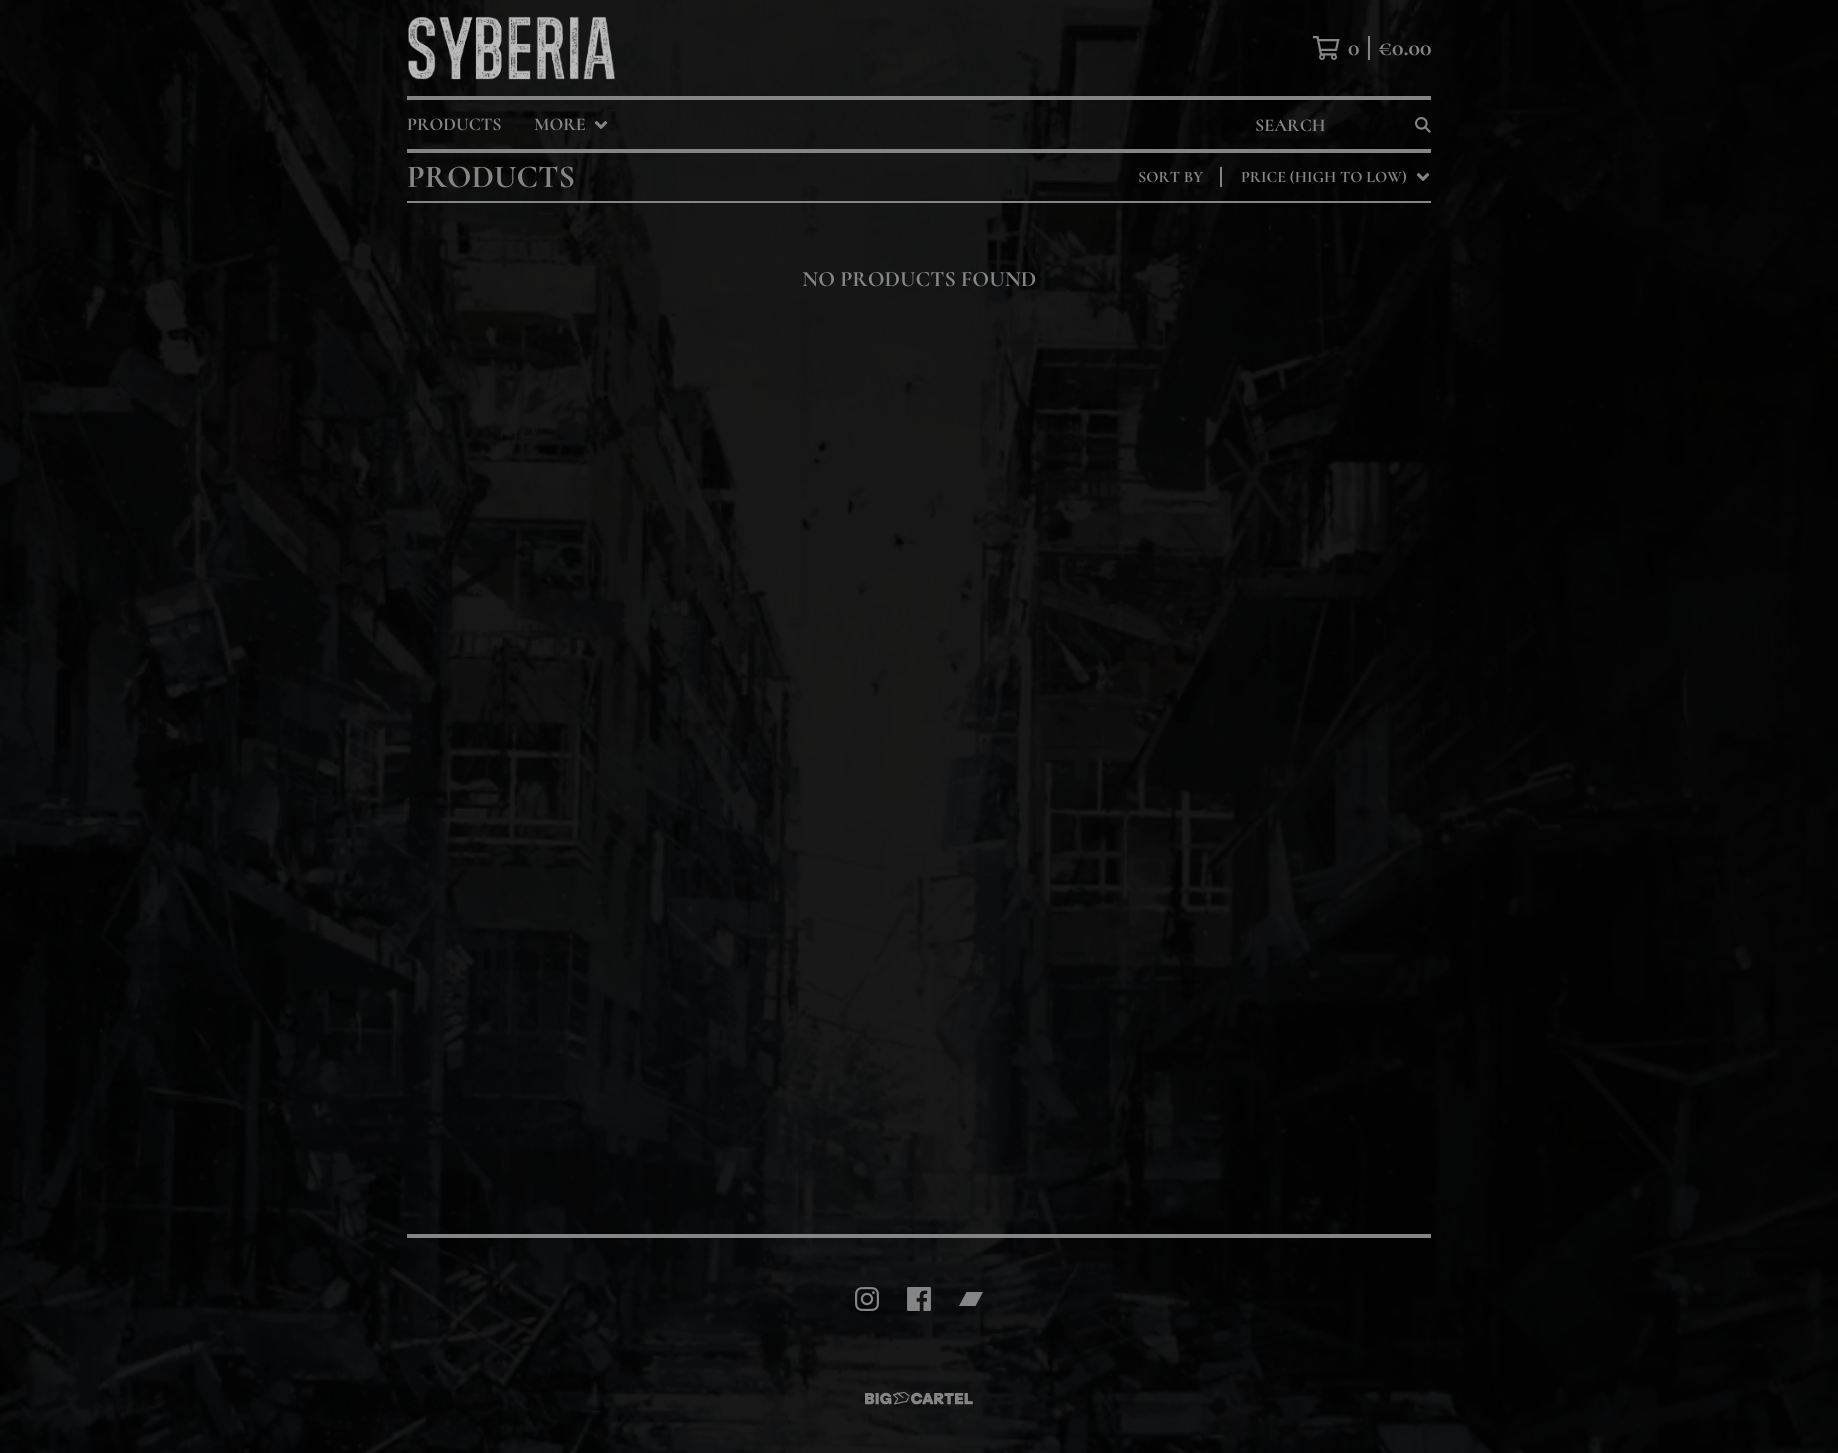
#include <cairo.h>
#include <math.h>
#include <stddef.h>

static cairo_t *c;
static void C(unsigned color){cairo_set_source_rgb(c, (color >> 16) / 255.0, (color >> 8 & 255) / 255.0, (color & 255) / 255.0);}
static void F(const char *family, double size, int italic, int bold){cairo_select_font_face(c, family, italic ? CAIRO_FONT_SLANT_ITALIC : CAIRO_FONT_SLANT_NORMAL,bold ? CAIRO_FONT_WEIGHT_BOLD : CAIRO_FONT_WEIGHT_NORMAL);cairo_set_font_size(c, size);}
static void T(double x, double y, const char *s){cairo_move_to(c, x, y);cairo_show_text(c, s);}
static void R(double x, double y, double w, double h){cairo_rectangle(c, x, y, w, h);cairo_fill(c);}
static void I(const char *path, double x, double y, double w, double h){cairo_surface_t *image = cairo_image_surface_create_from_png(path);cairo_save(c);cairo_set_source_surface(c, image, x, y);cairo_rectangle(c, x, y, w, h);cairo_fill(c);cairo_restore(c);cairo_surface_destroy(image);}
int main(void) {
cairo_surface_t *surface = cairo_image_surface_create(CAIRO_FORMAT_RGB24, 1838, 1453);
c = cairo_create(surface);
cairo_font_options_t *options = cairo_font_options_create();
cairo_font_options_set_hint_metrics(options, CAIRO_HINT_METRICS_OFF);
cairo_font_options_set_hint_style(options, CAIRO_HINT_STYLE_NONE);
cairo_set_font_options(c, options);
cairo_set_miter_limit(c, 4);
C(0xffffff);
cairo_paint(c);
I("1.png",0,0,1838,1453);
C(0x858585);
R(407,96,1024,4);
I("2.png",408,16,208,64);
I("3.png",1312,36,28,24);
R(1368,36,2,24);
F("Cormorant",24,0,1);
T(1348,55,"0");
T(1378,55,"€0.00");
R(407,149,1024,4);
F("Cormorant",18,0,1);
T(407,130,"PRODUCTS");
T(534,130,"MORE");
I("4.png",594,121,14,8);
T(1255,131,"SEARCH");
I("5.png",1415,117,16,16);
R(407,201,1024,2);
F("Cormorant",32,0,1);
T(407,187,"PRODUCTS");
F("Cormorant",16,0,1);
T(1138,182,"SORT BY");
R(1220,167,2,20);
T(1241,182,"PRICE (HIGH TO LOW)");
I("6.png",1416,173,14,8);
F("Cormorant",22,0,1);
T(802,286,"NO PRODUCTS FOUND");
R(407,1234,1024,4);
I("7.png",855,1287,24,24);
I("8.png",907,1287,24,24);
cairo_new_path(c);
cairo_move_to(c,975.5,1306);
cairo_line_to(c,959,1306);
cairo_line_to(c,966.5,1292);
cairo_line_to(c,983,1292);
cairo_close_path(c);
cairo_fill(c);
I("9.png",865,1392,108,13);
cairo_surface_write_to_png(surface, "o.png");
cairo_font_options_destroy(options);
cairo_destroy(c);
cairo_surface_destroy(surface);
return 0;
}
